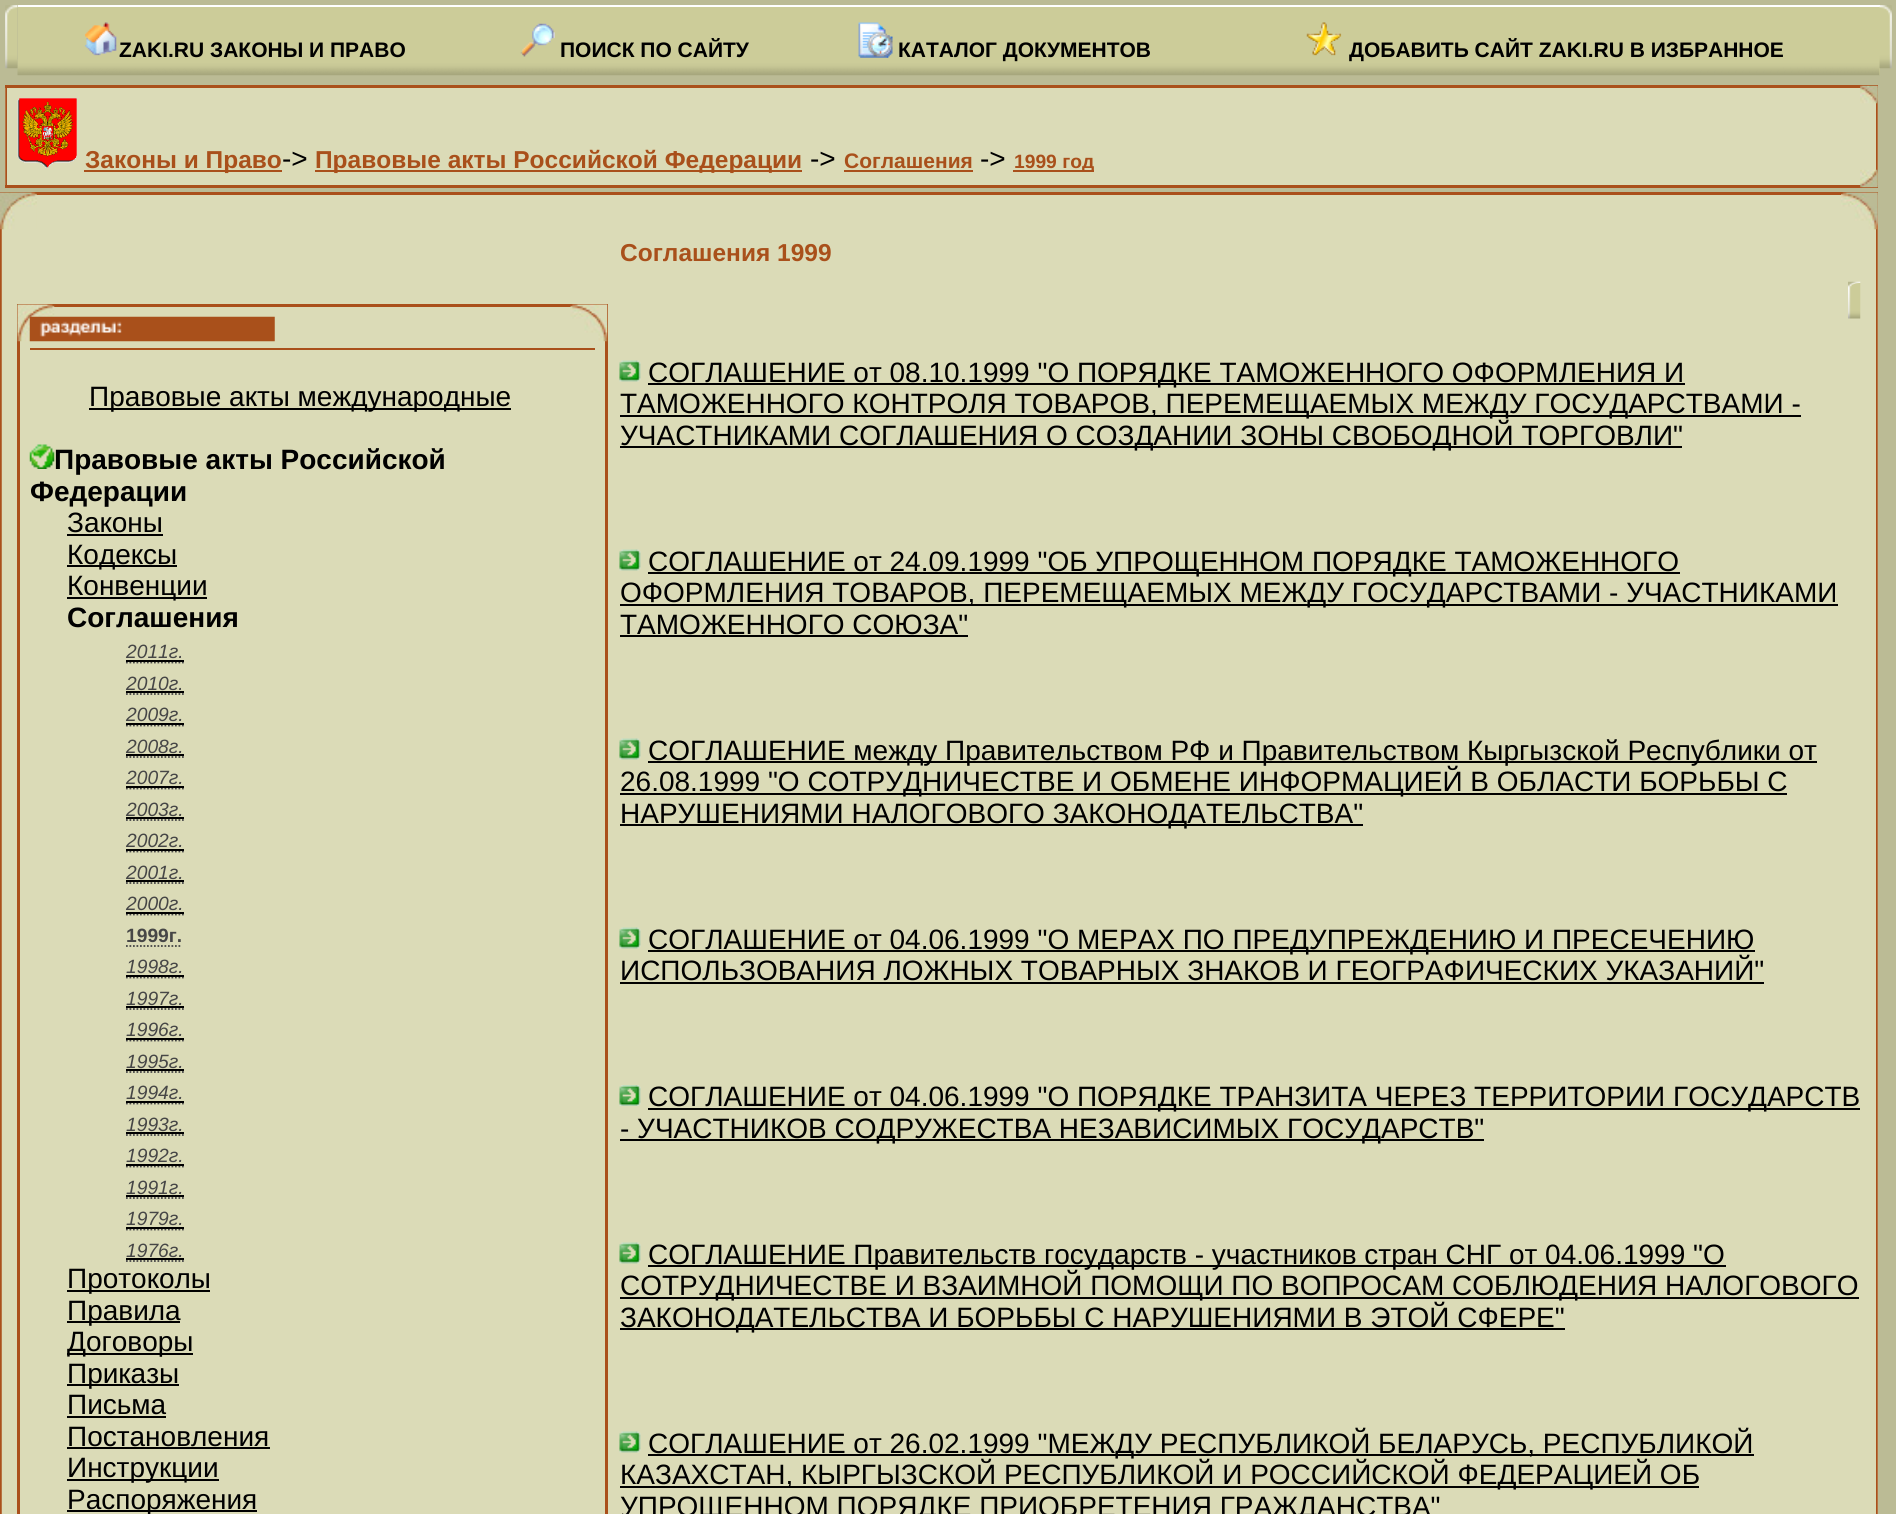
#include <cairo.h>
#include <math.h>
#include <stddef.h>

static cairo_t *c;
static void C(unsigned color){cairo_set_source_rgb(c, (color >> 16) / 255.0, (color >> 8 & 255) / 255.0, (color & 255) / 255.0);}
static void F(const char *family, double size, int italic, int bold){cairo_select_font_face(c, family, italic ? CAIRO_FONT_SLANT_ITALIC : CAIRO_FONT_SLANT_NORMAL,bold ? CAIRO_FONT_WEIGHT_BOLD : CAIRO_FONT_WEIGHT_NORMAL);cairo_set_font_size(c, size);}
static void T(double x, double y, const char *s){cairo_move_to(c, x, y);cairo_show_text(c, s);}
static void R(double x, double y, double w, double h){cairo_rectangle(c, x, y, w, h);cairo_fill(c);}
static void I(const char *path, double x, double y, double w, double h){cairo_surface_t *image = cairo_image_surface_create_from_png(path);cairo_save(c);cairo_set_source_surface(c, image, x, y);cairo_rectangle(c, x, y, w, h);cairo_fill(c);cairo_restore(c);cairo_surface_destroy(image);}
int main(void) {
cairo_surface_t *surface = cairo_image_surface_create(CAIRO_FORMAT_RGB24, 1896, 1514);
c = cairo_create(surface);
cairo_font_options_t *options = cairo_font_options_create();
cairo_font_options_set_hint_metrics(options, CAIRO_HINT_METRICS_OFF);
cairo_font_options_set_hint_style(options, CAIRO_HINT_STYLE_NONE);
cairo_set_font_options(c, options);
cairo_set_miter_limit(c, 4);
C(0xbbbb95);
cairo_paint(c);
C(0xcccc99);
R(18,7,1862,68);
I("2.png",17,59,1863,17);
I("1.png",5,5,13,64);
C(0xffffff);
R(18,5,1862,2);
I("3.png",84,22,33,34);
F("Liberation Sans",21,0,1);
C(0x000000);
T(119,57,"ZAKI.RU ЗАКОНЫ И ПРАВО");
I("4.png",520,23,35,34);
T(560,57,"ПОИСК ПО САЙТУ");
I("5.png",858,22,35,36);
T(898,57,"КАТАЛОГ ДОКУМЕНТОВ");
I("6.png",1306,22,36,34);
T(1349,57,"ДОБАВИТЬ САЙТ ZAKI.RU В ИЗБРАННОЕ");
I("7.png",1879,5,13,64);
C(0xdbdbb7);
R(5,88,1873,97);
C(0xaa501b);
R(5,85,1873,3);
R(5,185,1873,3);
I("8.png",5,88,2,97);
I("9.png",1876,88,2,97);
I("10.png",1860,169,18,19);
I("11.png",1860,85,18,19);
I("12.png",17,98,60,70);
C(0xa9501b);
R(84,170,198,2);
F("Liberation Sans",24.5,0,1);
T(85,168,"Законы и Право");
F("Liberation Sans",28,0,0);
C(0x000000);
T(282,168,"->");
C(0xa9501b);
R(315,170,487,2);
F("Liberation Sans",24.5,0,1);
T(315,168,"Правовые акты Российской Федерации");
F("Liberation Sans",28,0,0);
C(0x000000);
T(810,168,"->");
F("Liberation Sans",21,0,1);
C(0xa9501b);
T(844,168,"Соглашения");
R(844,170,129,2);
F("Liberation Sans",28,0,0);
C(0x000000);
T(980,168,"->");
C(0xa9501b);
R(1013,170,81,2);
F("Liberation Sans",19.25,0,1);
T(1014,168,"1999 год");
C(0xdbdbb7);
R(1,195,1877,1319);
C(0xaa501b);
R(0,192,1878,3);
I("13.png",0,229,2,1285);
I("14.png",1876,195,2,1319);
I("15.png",0,192,37,38);
I("16.png",1841,192,37,38);
R(17,304,591,3);
R(17,307,3,1207);
R(605,307,3,1207);
I("17.png",17,304,38,38);
I("18.png",570,304,38,38);
I("19.png",29,316,246,26);
C(0xa9501b);
R(30,348,565,2);
C(0x000000);
R(89,408,422,2);
F("Liberation Sans",28,0,0);
T(89,406,"Правовые акты международные");
I("20.png",29,444,26,25);
F("Liberation Sans",28,0,1);
T(54,469,"Правовые акты Российской");
T(30,501,"Федерации");
F("Liberation Sans",28,0,0);
T(67,532,"Законы");
R(67,534,96,2);
R(67,565,110,2);
T(67,564,"Кодексы");
R(67,597,140,2);
T(67,595,"Конвенции");
F("Liberation Sans",28,0,1);
T(67,627,"Соглашения");
F("Liberation Sans",19.25,1,0);
C(0x464646);
T(126,658,"2011г.");
cairo_new_path(c);
cairo_move_to(c,126,662.5);
cairo_line_to(c,184,662.5);
cairo_set_line_width(c,1.8);
cairo_set_dash(c,(double[]){1.75,1.75},2,0);
cairo_stroke(c);
C(0x000000);
R(126,660,58,2);
C(0x464646);
T(126,690,"2010г.");
cairo_new_path(c);
cairo_move_to(c,126,694);
cairo_line_to(c,184,694);
cairo_stroke(c);
C(0x000000);
R(126,691,58,2);
C(0x464646);
T(126,721,"2009г.");
cairo_new_path(c);
cairo_move_to(c,126,725.5);
cairo_line_to(c,184,725.5);
cairo_stroke(c);
C(0x000000);
R(126,723,58,2);
C(0x464646);
T(126,753,"2008г.");
cairo_new_path(c);
cairo_move_to(c,126,757);
cairo_line_to(c,184,757);
cairo_stroke(c);
C(0x000000);
R(126,754,58,2);
C(0x464646);
T(126,784,"2007г.");
cairo_new_path(c);
cairo_move_to(c,126,788.5);
cairo_line_to(c,184,788.5);
cairo_stroke(c);
C(0x000000);
R(126,786,58,2);
C(0x464646);
T(126,816,"2003г.");
cairo_new_path(c);
cairo_move_to(c,126,820);
cairo_line_to(c,184,820);
cairo_stroke(c);
C(0x000000);
R(126,817,58,2);
C(0x464646);
T(126,847,"2002г.");
cairo_new_path(c);
cairo_move_to(c,126,851.5);
cairo_line_to(c,184,851.5);
cairo_stroke(c);
C(0x000000);
R(126,849,58,2);
C(0x464646);
T(126,879,"2001г.");
cairo_new_path(c);
cairo_move_to(c,126,883);
cairo_line_to(c,184,883);
cairo_stroke(c);
C(0x000000);
R(126,880,58,2);
C(0x464646);
T(126,910,"2000г.");
cairo_new_path(c);
cairo_move_to(c,126,914.5);
cairo_line_to(c,184,914.5);
cairo_stroke(c);
C(0x000000);
R(126,912,58,2);
F("Liberation Sans",19.25,0,1);
C(0x464646);
T(126,942,"1999г.");
cairo_new_path(c);
cairo_move_to(c,126,946);
cairo_line_to(c,182,946);
cairo_stroke(c);
F("Liberation Sans",19.25,1,0);
T(126,973,"1998г.");
cairo_new_path(c);
cairo_move_to(c,126,977.5);
cairo_line_to(c,184,977.5);
cairo_stroke(c);
C(0x000000);
R(126,975,58,2);
C(0x464646);
T(126,1005,"1997г.");
cairo_new_path(c);
cairo_move_to(c,126,1009);
cairo_line_to(c,184,1009);
cairo_stroke(c);
C(0x000000);
R(126,1006,58,2);
C(0x464646);
T(126,1036,"1996г.");
cairo_new_path(c);
cairo_move_to(c,126,1040.5);
cairo_line_to(c,184,1040.5);
cairo_stroke(c);
C(0x000000);
R(126,1038,58,2);
C(0x464646);
T(126,1068,"1995г.");
cairo_new_path(c);
cairo_move_to(c,126,1072);
cairo_line_to(c,184,1072);
cairo_stroke(c);
C(0x000000);
R(126,1069,58,2);
C(0x464646);
T(126,1099,"1994г.");
cairo_new_path(c);
cairo_move_to(c,126,1103.5);
cairo_line_to(c,184,1103.5);
cairo_stroke(c);
C(0x000000);
R(126,1101,58,2);
C(0x464646);
T(126,1131,"1993г.");
cairo_new_path(c);
cairo_move_to(c,126,1135);
cairo_line_to(c,184,1135);
cairo_stroke(c);
C(0x000000);
R(126,1132,58,2);
C(0x464646);
T(126,1162,"1992г.");
cairo_new_path(c);
cairo_move_to(c,126,1166.5);
cairo_line_to(c,184,1166.5);
cairo_stroke(c);
C(0x000000);
R(126,1164,58,2);
C(0x464646);
T(126,1194,"1991г.");
cairo_new_path(c);
cairo_move_to(c,126,1198);
cairo_line_to(c,184,1198);
cairo_stroke(c);
C(0x000000);
R(126,1195,58,2);
C(0x464646);
T(126,1225,"1979г.");
cairo_new_path(c);
cairo_move_to(c,126,1229.5);
cairo_line_to(c,184,1229.5);
cairo_stroke(c);
C(0x000000);
R(126,1227,58,2);
C(0x464646);
T(126,1257,"1976г.");
cairo_new_path(c);
cairo_move_to(c,126,1261);
cairo_line_to(c,184,1261);
cairo_stroke(c);
C(0x000000);
R(126,1258,58,2);
R(67,1290,143,2);
F("Liberation Sans",28,0,0);
T(67,1288,"Протоколы");
R(67,1321,113,2);
T(67,1320,"Правила");
R(67,1353,126,2);
T(67,1351,"Договоры");
R(67,1384,112,2);
T(67,1383,"Приказы");
T(67,1414,"Письма");
R(67,1416,99,2);
T(67,1446,"Постановления");
R(67,1447,203,2);
R(67,1479,152,2);
T(67,1477,"Инструкции");
R(67,1510,190,2);
T(67,1509,"Распоряжения");
F("Liberation Sans",24.5,0,1);
C(0xa9501b);
T(620,261,"Соглашения 1999");
I("21.png",1848,281,13,38);
I("22.png",619,360,22,22);
C(0x000000);
R(648,383,1037,2);
F("Liberation Sans",28,0,0);
T(648,382,"СОГЛАШЕНИЕ от 08.10.1999 \"О ПОРЯДКЕ ТАМОЖЕННОГО ОФОРМЛЕНИЯ И");
R(620,415,1181,2);
T(620,413,"ТАМОЖЕННОГО КОНТРОЛЯ ТОВАРОВ, ПЕРЕМЕЩАЕМЫХ МЕЖДУ ГОСУДАРСТВАМИ -");
R(620,446,1062,2);
T(620,445,"УЧАСТНИКАМИ СОГЛАШЕНИЯ О СОЗДАНИИ ЗОНЫ СВОБОДНОЙ ТОРГОВЛИ\"");
I("22.png",619,549,22,22);
R(648,572,1032,2);
T(648,571,"СОГЛАШЕНИЕ от 24.09.1999 \"ОБ УПРОЩЕННОМ ПОРЯДКЕ ТАМОЖЕННОГО");
R(620,604,1218,2);
T(620,602,"ОФОРМЛЕНИЯ ТОВАРОВ, ПЕРЕМЕЩАЕМЫХ МЕЖДУ ГОСУДАРСТВАМИ - УЧАСТНИКАМИ");
T(620,634,"ТАМОЖЕННОГО СОЮЗА\"");
R(620,635,348,2);
I("22.png",619,738,22,22);
R(648,761,1169,2);
T(648,760,"СОГЛАШЕНИЕ между Правительством РФ и Правительством Кыргызской Республики от");
R(620,793,1167,2);
T(620,791,"26.08.1999 \"О СОТРУДНИЧЕСТВЕ И ОБМЕНЕ ИНФОРМАЦИЕЙ В ОБЛАСТИ БОРЬБЫ С");
R(620,824,743,2);
T(620,823,"НАРУШЕНИЯМИ НАЛОГОВОГО ЗАКОНОДАТЕЛЬСТВА\"");
I("22.png",619,927,22,22);
R(648,950,1107,2);
T(648,949,"СОГЛАШЕНИЕ от 04.06.1999 \"О МЕРАХ ПО ПРЕДУПРЕЖДЕНИЮ И ПРЕСЕЧЕНИЮ");
T(620,980,"ИСПОЛЬЗОВАНИЯ ЛОЖНЫХ ТОВАРНЫХ ЗНАКОВ И ГЕОГРАФИЧЕСКИХ УКАЗАНИЙ\"");
R(620,982,1144,2);
I("23.png",619,1085,22,21);
R(648,1108,1212,2);
T(648,1106,"СОГЛАШЕНИЕ от 04.06.1999 \"О ПОРЯДКЕ ТРАНЗИТА ЧЕРЕЗ ТЕРРИТОРИИ ГОСУДАРСТВ");
R(620,1139,864,2);
T(620,1138,"- УЧАСТНИКОВ СОДРУЖЕСТВА НЕЗАВИСИМЫХ ГОСУДАРСТВ\"");
I("22.png",619,1242,22,22);
R(648,1265,1078,2);
T(648,1264,"СОГЛАШЕНИЕ Правительств государств - участников стран СНГ от 04.06.1999 \"О");
R(620,1297,1239,2);
T(620,1295,"СОТРУДНИЧЕСТВЕ И ВЗАИМНОЙ ПОМОЩИ ПО ВОПРОСАМ СОБЛЮДЕНИЯ НАЛОГОВОГО");
R(620,1328,945,2);
T(620,1327,"ЗАКОНОДАТЕЛЬСТВА И БОРЬБЫ С НАРУШЕНИЯМИ В ЭТОЙ СФЕРЕ\"");
I("22.png",619,1431,22,22);
R(648,1454,1106,2);
T(648,1453,"СОГЛАШЕНИЕ от 26.02.1999 \"МЕЖДУ РЕСПУБЛИКОЙ БЕЛАРУСЬ, РЕСПУБЛИКОЙ");
R(620,1486,1079,2);
T(620,1484,"КАЗАХСТАН, КЫРГЫЗСКОЙ РЕСПУБЛИКОЙ И РОССИЙСКОЙ ФЕДЕРАЦИЕЙ ОБ");
T(620,1516,"УПРОЩЕННОМ ПОРЯДКЕ ПРИОБРЕТЕНИЯ ГРАЖДАНСТВА\"");
cairo_surface_write_to_png(surface, "o.png");
cairo_font_options_destroy(options);
cairo_destroy(c);
cairo_surface_destroy(surface);
return 0;
}
